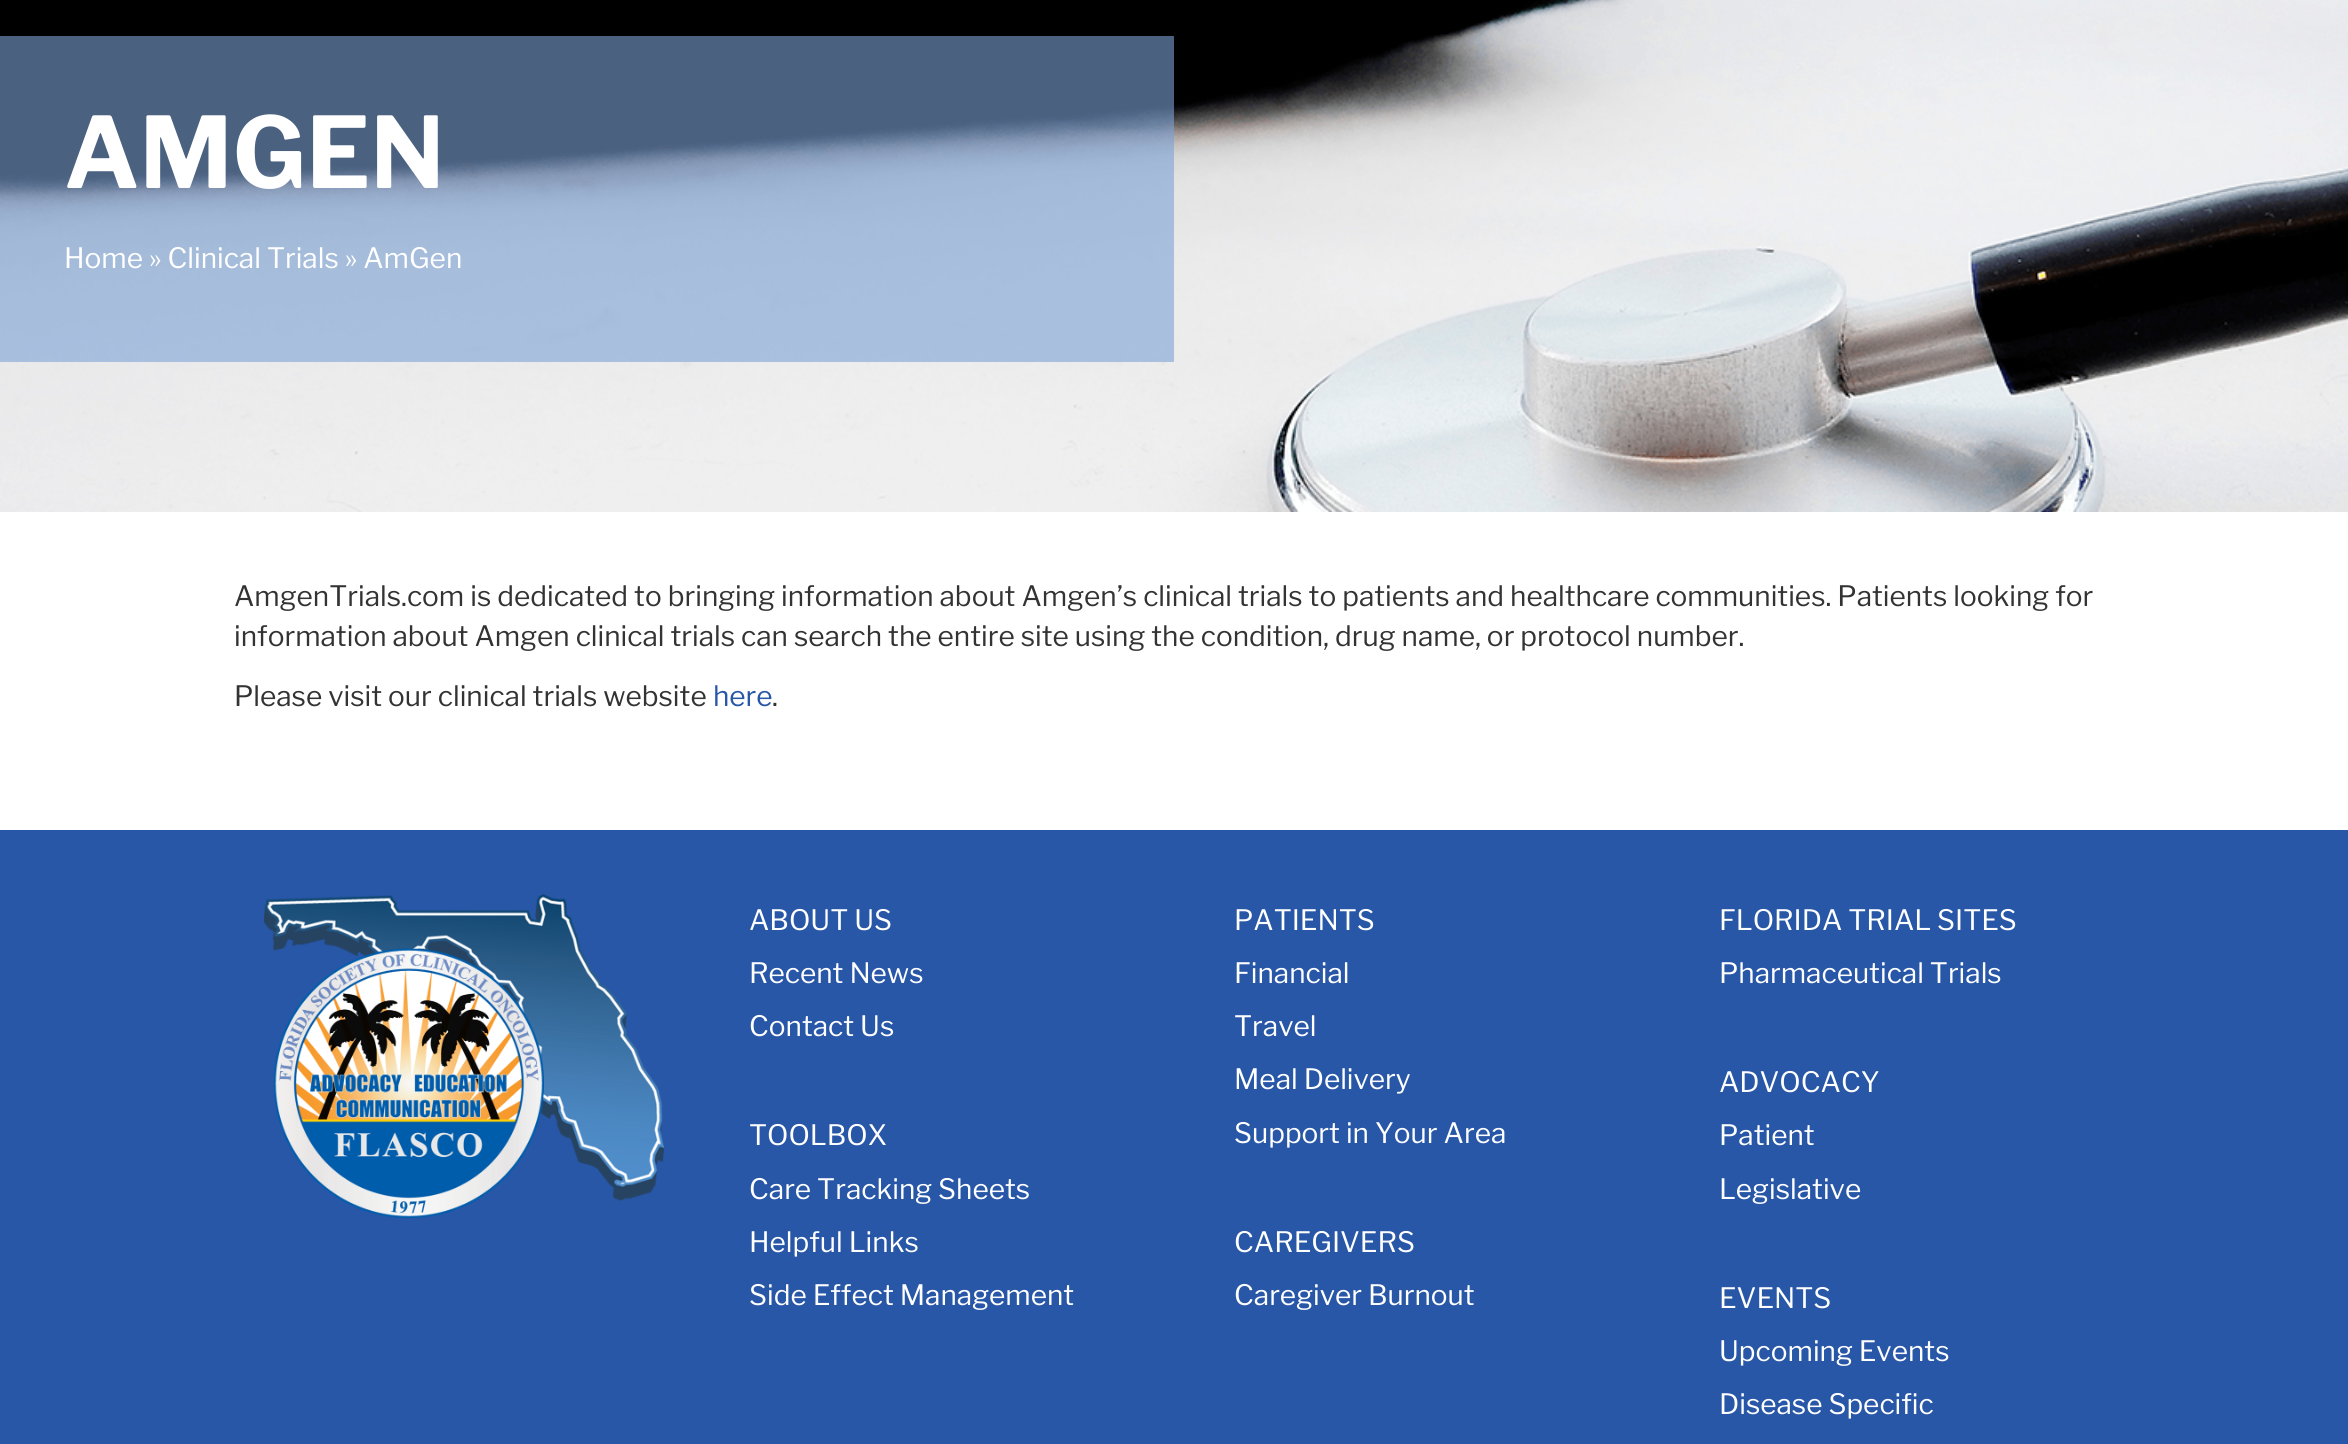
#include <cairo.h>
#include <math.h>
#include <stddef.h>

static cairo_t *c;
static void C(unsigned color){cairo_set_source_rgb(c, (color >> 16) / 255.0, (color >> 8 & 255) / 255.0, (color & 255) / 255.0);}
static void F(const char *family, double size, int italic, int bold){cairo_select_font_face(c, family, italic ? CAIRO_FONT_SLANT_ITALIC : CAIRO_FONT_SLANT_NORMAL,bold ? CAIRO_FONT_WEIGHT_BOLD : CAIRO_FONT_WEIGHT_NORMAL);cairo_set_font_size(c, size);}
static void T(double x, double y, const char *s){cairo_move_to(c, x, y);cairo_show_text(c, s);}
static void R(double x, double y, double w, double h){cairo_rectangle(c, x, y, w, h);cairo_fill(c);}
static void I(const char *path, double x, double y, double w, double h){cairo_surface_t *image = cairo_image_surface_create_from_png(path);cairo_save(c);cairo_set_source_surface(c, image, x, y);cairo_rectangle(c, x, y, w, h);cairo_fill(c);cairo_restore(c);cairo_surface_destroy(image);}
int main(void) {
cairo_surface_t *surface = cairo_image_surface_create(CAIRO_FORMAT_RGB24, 2348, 1444);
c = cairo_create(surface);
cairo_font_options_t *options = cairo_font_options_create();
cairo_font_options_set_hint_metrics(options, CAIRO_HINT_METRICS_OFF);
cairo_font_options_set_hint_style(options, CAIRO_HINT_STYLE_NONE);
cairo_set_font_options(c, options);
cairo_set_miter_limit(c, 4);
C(0xffffff);
cairo_paint(c);
I("1.png",0,0,2348,512);
cairo_set_source_rgba(c,0.486,0.635,0.835,0.6);
R(0,36,1174,326);
F("Libre Franklin",98,0,1);
C(0xffffff);
T(64,188,"AMGEN");
F("Libre Franklin",28,0,0);
T(64,268,"Home » Clinical Trials » AmGen");
C(0x333333);
T(234,606,"AmgenTrials.com is dedicated to bringing information about Amgen’s clinical trials to patients and healthcare communities. Patients looking for");
T(234,646,"information about Amgen clinical trials can search the entire site using the condition, drug name, or protocol number.");
T(234,706,"Please visit our clinical trials website");
C(0x2857a7);
T(713,706,"here");
C(0x333333);
T(772,706,".");
C(0x2857a7);
R(0,830,2348,614);
I("2.png",264,894,400,324);
C(0xffffff);
T(749,930,"ABOUT US");
T(749,983,"Recent News");
T(749,1036,"Contact Us");
T(749,1145,"TOOLBOX");
T(749,1199,"Care Tracking Sheets");
T(749,1252,"Helpful Links");
T(749,1305,"Side Effect Management");
T(1234,930,"PATIENTS");
T(1234,983,"Financial");
T(1234,1036,"Travel");
T(1234,1089,"Meal Delivery");
T(1234,1143,"Support in Your Area");
T(1234,1252,"CAREGIVERS");
T(1234,1305,"Caregiver Burnout");
T(1719,930,"FLORIDA TRIAL SITES");
T(1719,983,"Pharmaceutical Trials");
T(1719,1092,"ADVOCACY");
T(1719,1145,"Patient");
T(1719,1199,"Legislative");
T(1719,1308,"EVENTS");
T(1719,1361,"Upcoming Events");
T(1719,1414,"Disease Specific");
cairo_surface_write_to_png(surface, "o.png");
cairo_font_options_destroy(options);
cairo_destroy(c);
cairo_surface_destroy(surface);
return 0;
}
